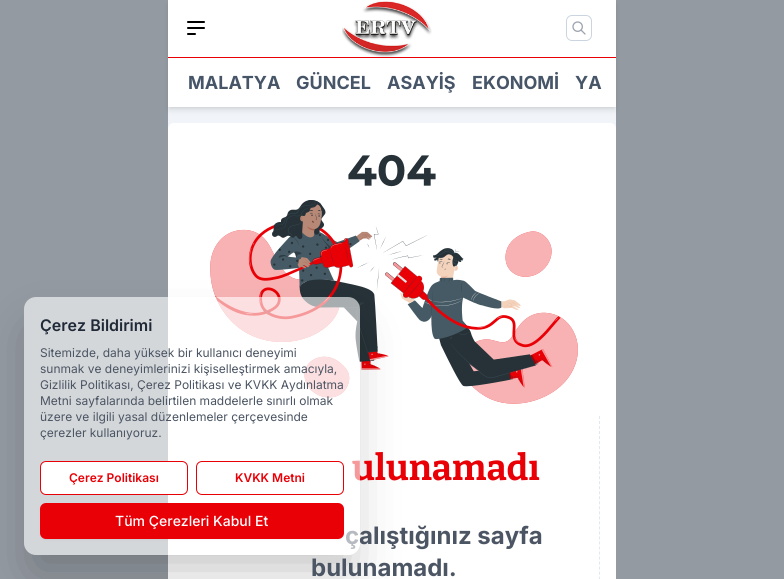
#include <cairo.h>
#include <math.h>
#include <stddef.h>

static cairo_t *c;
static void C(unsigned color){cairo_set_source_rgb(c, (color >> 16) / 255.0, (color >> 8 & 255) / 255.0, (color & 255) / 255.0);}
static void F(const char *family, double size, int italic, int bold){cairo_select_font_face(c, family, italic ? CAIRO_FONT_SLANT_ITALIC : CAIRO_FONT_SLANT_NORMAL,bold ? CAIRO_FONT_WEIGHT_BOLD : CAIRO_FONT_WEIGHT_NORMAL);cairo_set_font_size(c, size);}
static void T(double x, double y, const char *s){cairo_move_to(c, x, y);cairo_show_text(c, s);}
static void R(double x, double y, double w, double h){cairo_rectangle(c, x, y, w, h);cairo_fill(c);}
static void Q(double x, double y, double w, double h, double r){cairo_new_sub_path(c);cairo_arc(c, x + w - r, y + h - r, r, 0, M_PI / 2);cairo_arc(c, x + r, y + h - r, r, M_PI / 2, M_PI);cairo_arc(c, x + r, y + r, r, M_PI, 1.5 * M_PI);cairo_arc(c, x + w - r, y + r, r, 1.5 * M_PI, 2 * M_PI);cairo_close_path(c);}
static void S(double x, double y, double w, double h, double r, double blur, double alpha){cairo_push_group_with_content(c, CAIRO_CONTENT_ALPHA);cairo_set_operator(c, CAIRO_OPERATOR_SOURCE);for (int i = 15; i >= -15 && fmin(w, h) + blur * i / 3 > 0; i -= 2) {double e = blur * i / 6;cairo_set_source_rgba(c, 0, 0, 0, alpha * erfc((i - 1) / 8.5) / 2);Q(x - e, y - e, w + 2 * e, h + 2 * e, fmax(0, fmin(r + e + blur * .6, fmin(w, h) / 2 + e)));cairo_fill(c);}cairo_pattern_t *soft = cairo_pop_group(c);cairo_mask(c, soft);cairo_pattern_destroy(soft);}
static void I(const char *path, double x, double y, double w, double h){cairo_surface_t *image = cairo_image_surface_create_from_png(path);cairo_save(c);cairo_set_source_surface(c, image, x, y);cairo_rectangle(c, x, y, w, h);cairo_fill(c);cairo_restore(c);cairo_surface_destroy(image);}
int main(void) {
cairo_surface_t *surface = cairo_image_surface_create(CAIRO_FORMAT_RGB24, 784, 579);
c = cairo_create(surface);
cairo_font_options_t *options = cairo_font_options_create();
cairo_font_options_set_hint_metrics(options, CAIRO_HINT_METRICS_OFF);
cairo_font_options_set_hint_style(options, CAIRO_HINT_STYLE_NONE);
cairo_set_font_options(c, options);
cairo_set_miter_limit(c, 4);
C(0x949aa2);
cairo_paint(c);
C(0xf1f5f9);
R(168,107,448,22);
C(0x000000);
S(170,4,444,103,0,2,.1);
S(169,5,446,105,0,3,.1);
C(0xffffff);
R(168,0,448,107);
I("1.png",187,21,18,14);
I("2.png",342,1,90,56);
Q(566.5,15.5,25,25,5.5);
C(0xcbd5e1);
cairo_set_line_width(c,1);
cairo_stroke(c);
I("3.png",572,21,14,14);
C(0xe90006);
R(168,57,448,1);
F("Inter",18,0,1);
C(0x475569);
T(188,89,"MALATYA");
T(296,89,"GÜNCEL");
T(387,89,"ASAYİŞ");
T(472,89,"EKONOMİ");
T(575,89,"YA");
C(0xffffff);
Q(168,123,448,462,6);
cairo_fill(c);
I("4.png",210,154,368,250);
cairo_save(c);
cairo_set_fill_rule(c,CAIRO_FILL_RULE_EVEN_ODD);
cairo_new_path(c);
cairo_move_to(c,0,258);
cairo_line_to(c,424,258);
cairo_line_to(c,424,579);
cairo_line_to(c,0,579);
cairo_close_path(c);
cairo_move_to(c,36,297);
cairo_line_to(c,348,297);
cairo_curve_to(c,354.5,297,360,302.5,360,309);
cairo_line_to(c,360,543);
cairo_curve_to(c,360,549.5,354.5,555,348,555);
cairo_line_to(c,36,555);
cairo_curve_to(c,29.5,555,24,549.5,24,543);
cairo_line_to(c,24,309);
cairo_curve_to(c,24,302.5,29.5,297,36,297);
cairo_close_path(c);
cairo_clip(c);
C(0x000000);
S(36,334,312,234,0,25,.25);
cairo_restore(c);
F("Bitter Thin",36,0,0);
C(0xe90006);
T(352,480,"ulunamadı");
F("Inter",24,0,1);
C(0x4b5563);
T(345,544,"çalıştığınız sayfa");
cairo_set_source_rgba(c,1,1,1,0.6);
Q(24,297,336,258,12);
cairo_fill(c);
F("Inter SemiBold",16,0,0);
C(0x1f2937);
T(40,331,"Çerez Bildirimi");
F("Inter",12,0,0);
C(0x4b5563);
T(40,357,"Sitemizde, daha yüksek bir kullanıcı deneyimi");
T(40,373,"sunmak ve deneyimlerinizi kişiselleştirmek amacıyla,");
T(40,389,"Gizlilik Politikası, Çerez Politikası ve KVKK Aydınlatma");
T(40,405,"Metni sayfalarında belirtilen maddelerle sınırlı olmak");
T(40,421,"üzere ve ilgili yasal düzenlemeler çerçevesinde");
T(40,437,"çerezler kullanıyoruz.");
C(0xffffff);
Q(40.5,461.5,147,33,5.5);
cairo_fill_preserve(c);
C(0xe90006);
cairo_stroke(c);
F("Inter SemiBold",12,0,0);
T(69,482,"Çerez Politikası");
Q(196.5,461.5,147,33,5.5);
cairo_stroke(c);
T(235,482,"KVKK Metni");
C(0x000000);
S(40,504,304,36,6,1,.05);
C(0xe90006);
Q(40,503,304,36,6);
cairo_fill(c);
F("Inter Medium",14,0,0);
C(0xffffff);
T(115,526,"Tüm Çerezleri Kabul Et");
cairo_new_path(c);
cairo_move_to(c,599.5,416);
cairo_line_to(c,599.5,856);
C(0xe2e8f0);
cairo_set_dash(c,(double[]){3,2.02},2,0);
cairo_stroke(c);
F("Inter",24,0,1);
C(0x4b5563);
T(311,576,"bulunamadı.");
cairo_surface_write_to_png(surface, "o.png");
cairo_font_options_destroy(options);
cairo_destroy(c);
cairo_surface_destroy(surface);
return 0;
}
